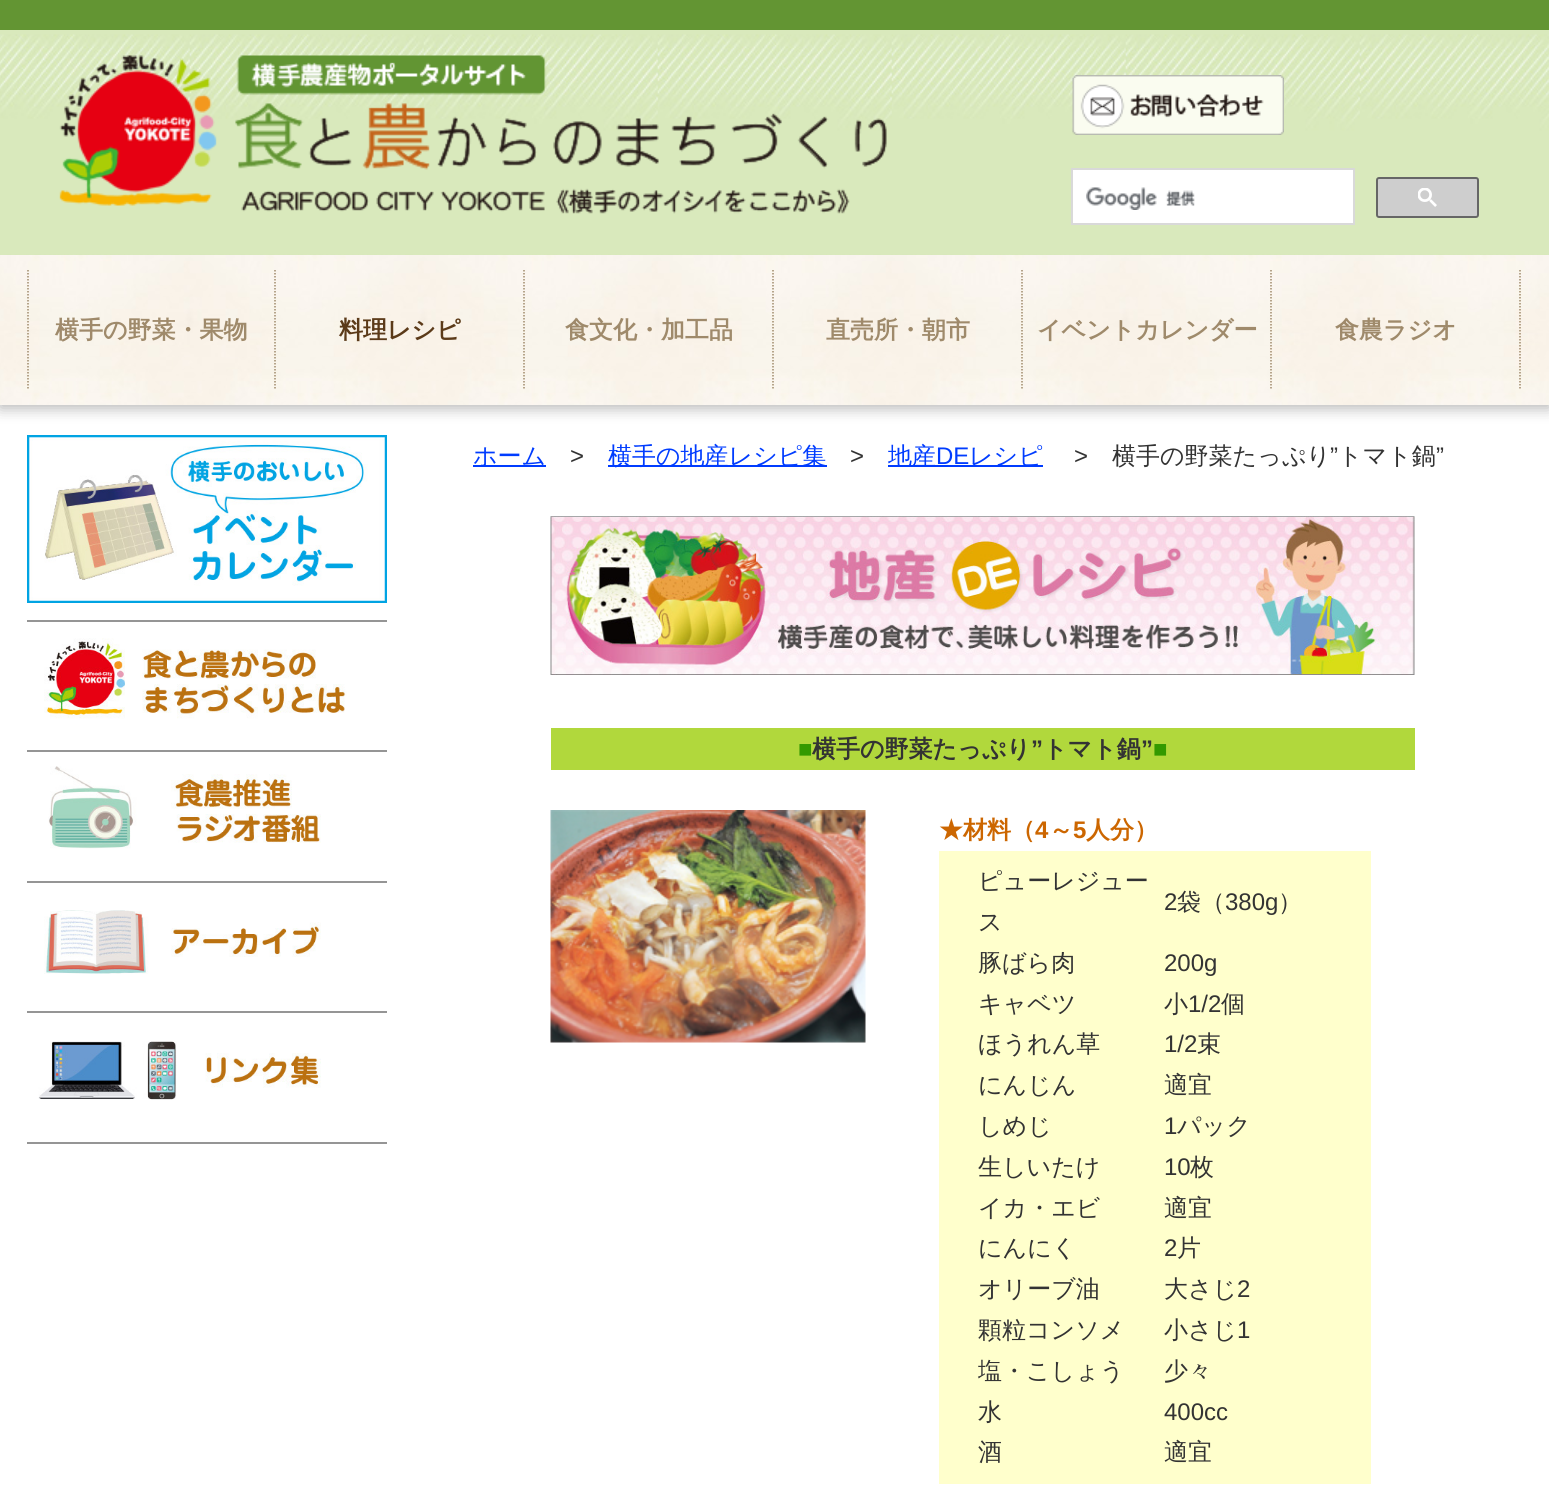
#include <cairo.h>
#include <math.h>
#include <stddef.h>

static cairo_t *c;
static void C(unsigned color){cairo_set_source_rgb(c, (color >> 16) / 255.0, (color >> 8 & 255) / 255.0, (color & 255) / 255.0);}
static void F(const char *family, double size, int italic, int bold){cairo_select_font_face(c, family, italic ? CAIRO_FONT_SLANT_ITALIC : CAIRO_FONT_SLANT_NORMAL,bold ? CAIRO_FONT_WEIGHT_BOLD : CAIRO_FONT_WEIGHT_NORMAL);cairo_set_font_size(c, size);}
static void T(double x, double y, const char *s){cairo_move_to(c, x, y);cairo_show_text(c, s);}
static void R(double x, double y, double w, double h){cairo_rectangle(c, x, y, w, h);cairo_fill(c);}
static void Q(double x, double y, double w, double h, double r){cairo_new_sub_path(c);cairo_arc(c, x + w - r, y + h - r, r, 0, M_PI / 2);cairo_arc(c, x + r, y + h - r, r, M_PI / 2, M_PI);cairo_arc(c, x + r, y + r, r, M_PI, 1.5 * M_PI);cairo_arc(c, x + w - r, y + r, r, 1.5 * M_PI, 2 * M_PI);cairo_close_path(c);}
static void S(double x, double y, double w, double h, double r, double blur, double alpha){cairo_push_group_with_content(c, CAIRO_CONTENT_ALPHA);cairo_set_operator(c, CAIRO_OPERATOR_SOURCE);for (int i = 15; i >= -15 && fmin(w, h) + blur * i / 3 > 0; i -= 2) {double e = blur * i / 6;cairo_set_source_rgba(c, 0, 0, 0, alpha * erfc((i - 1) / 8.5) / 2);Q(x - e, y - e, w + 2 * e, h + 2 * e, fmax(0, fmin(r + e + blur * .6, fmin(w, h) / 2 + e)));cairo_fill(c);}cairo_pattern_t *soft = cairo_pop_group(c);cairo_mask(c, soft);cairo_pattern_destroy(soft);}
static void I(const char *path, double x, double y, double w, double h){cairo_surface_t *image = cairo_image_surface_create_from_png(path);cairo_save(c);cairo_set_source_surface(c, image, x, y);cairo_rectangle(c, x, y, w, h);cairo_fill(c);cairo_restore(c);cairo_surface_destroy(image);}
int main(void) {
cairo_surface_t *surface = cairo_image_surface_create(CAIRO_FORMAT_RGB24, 1549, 1510);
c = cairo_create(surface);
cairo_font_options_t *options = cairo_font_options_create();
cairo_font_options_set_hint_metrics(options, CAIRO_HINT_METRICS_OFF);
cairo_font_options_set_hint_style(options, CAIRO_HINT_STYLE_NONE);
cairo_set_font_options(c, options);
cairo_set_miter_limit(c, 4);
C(0xffffff);
cairo_paint(c);
C(0x639533);
R(0,0,1549,30);
C(0x000000);
S(0,258,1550,150,0,7.5,.3);
I("1.png",0,30,1549,225);
I("2.png",59,55,828,159);
I("3.png",1072,75,212,60);
C(0xffffff);
cairo_rectangle(c,1072,169,282,55);
cairo_fill_preserve(c);
C(0xd9d9d9);
cairo_stroke(c);
I("4.png",1086,187,109,23);
C(0xcecece);
Q(1377,178,101,39,2);
cairo_fill_preserve(c);
C(0x666666);
cairo_stroke(c);
I("5.png",1418,188,19,19);
I("6.png",0,255,1549,150);
cairo_new_path(c);
cairo_move_to(c,275,270);
cairo_line_to(c,275,390);
C(0x9f8a6b);
cairo_set_line_width(c,1.5);
cairo_set_dash(c,(double[]){1.5,1.5},2,0);
cairo_stroke(c);
cairo_new_path(c);
cairo_move_to(c,28,270);
cairo_line_to(c,28,390);
cairo_stroke(c);
F("WenQuanYi Zen Hei",24,0,1);
T(55,338,"横手の野菜・果物");
cairo_new_path(c);
cairo_move_to(c,524,270);
cairo_line_to(c,524,390);
cairo_stroke(c);
C(0x5b3a19);
T(339,338,"料理レシピ");
cairo_new_path(c);
cairo_move_to(c,773,270);
cairo_line_to(c,773,390);
C(0x9f8a6b);
cairo_stroke(c);
T(565,338,"食文化・加工品");
cairo_new_path(c);
cairo_move_to(c,1022,270);
cairo_line_to(c,1022,390);
cairo_stroke(c);
T(826,338,"直売所・朝市");
cairo_new_path(c);
cairo_move_to(c,1271,270);
cairo_line_to(c,1271,390);
cairo_stroke(c);
T(1037,338,"イベントカレンダー");
cairo_new_path(c);
cairo_move_to(c,1520,270);
cairo_line_to(c,1520,390);
cairo_stroke(c);
T(1335,338,"食農ラジオ");
I("7.png",27,435,360,168);
C(0x959595);
R(27,620,360,2);
I("8.png",44,638,303,81);
R(27,750,360,2);
I("9.png",48,766,273,83);
R(27,881,360,2);
I("10.png",44,910,277,64);
R(27,1011,360,2);
I("11.png",38,1041,283,59);
R(27,1142,360,2);
C(0x003cff);
R(473,465,73,2);
F("WenQuanYi Zen Hei Medium",24,0,0);
T(473,464,"ホーム");
F("Liberation Sans",24,0,0);
C(0x333333);
T(570,464,">");
C(0x003cff);
R(608,465,219,2);
F("WenQuanYi Zen Hei Medium",24,0,0);
T(608,464,"横手の地産レシピ集");
F("Liberation Sans",24,0,0);
C(0x333333);
T(850,464,">");
C(0x003cff);
R(888,465,155,2);
F("WenQuanYi Zen Hei Medium",24,0,0);
T(888,464,"地産");
F("Liberation Sans",24,0,0);
T(936,464,"DE");
F("WenQuanYi Zen Hei Medium",24,0,0);
T(969,464,"レシピ");
F("Liberation Sans",24,0,0);
C(0x333333);
T(1074,464,">");
F("WenQuanYi Zen Hei Medium",24,0,0);
T(1112,464,"横手の野菜たっぷり");
F("Liberation Sans",24,0,0);
T(1330,464,"”");
F("WenQuanYi Zen Hei Medium",24,0,0);
T(1338,464,"トマト鍋");
F("Liberation Sans",24,0,0);
T(1436,464,"”");
I("12.png",550,516,865,159);
C(0xb1d83c);
R(551,728,864,42);
C(0x339900);
T(798,757,"■");
F("WenQuanYi Zen Hei",24,0,1);
C(0x333333);
T(812,757,"横手の野菜たっぷり");
F("Liberation Sans",24,0,1);
T(1031,757,"”");
F("WenQuanYi Zen Hei",24,0,1);
T(1043,757,"トマト鍋");
F("Liberation Sans",24,0,1);
T(1141,757,"”");
C(0x339900);
T(1153,757,"■");
I("13.png",550,810,316,233);
F("WenQuanYi Zen Hei",24,0,1);
C(0xcc6600);
T(939,838,"★材料（");
F("Liberation Sans",24,0,1);
T(1035,838,"4");
F("WenQuanYi Zen Hei",24,0,1);
T(1049,838,"～");
F("Liberation Sans",24,0,1);
T(1073,838,"5");
F("WenQuanYi Zen Hei",24,0,1);
T(1086,838,"人分）");
C(0xffffcc);
R(939,851,432,633);
F("WenQuanYi Zen Hei Medium",24,0,0);
C(0x333333);
T(978,889,"ピューレジュー");
T(978,930,"ス");
F("Liberation Sans",24,0,0);
T(1164,910,"2");
F("WenQuanYi Zen Hei Medium",24,0,0);
T(1177,910,"袋（");
F("Liberation Sans",24,0,0);
T(1225,910,"380g");
F("WenQuanYi Zen Hei Medium",24,0,0);
T(1278,910,"）");
T(978,971,"豚ばら肉");
F("Liberation Sans",24,0,0);
T(1164,971,"200g");
F("WenQuanYi Zen Hei Medium",24,0,0);
T(978,1012,"キャベツ");
T(1164,1012,"小");
F("Liberation Sans",24,0,0);
T(1188,1012,"1/2");
F("WenQuanYi Zen Hei Medium",24,0,0);
T(1221,1012,"個");
T(978,1052,"ほうれん草");
F("Liberation Sans",24,0,0);
T(1164,1052,"1/2");
F("WenQuanYi Zen Hei Medium",24,0,0);
T(1197,1052,"束");
T(978,1093,"にんじん");
T(1164,1093,"適宜");
T(978,1134,"しめじ");
F("Liberation Sans",24,0,0);
T(1164,1134,"1");
F("WenQuanYi Zen Hei Medium",24,0,0);
T(1177,1134,"パック");
T(978,1175,"生しいたけ");
F("Liberation Sans",24,0,0);
T(1164,1175,"10");
F("WenQuanYi Zen Hei Medium",24,0,0);
T(1190,1175,"枚");
T(978,1216,"イカ・エビ");
T(1164,1216,"適宜");
T(978,1256,"にんにく");
F("Liberation Sans",24,0,0);
T(1164,1256,"2");
F("WenQuanYi Zen Hei Medium",24,0,0);
T(1177,1256,"片");
T(978,1297,"オリーブ油");
T(1164,1297,"大さじ");
F("Liberation Sans",24,0,0);
T(1237,1297,"2");
F("WenQuanYi Zen Hei Medium",24,0,0);
T(978,1338,"顆粒コンソメ");
T(1164,1338,"小さじ");
F("Liberation Sans",24,0,0);
T(1237,1338,"1");
F("WenQuanYi Zen Hei Medium",24,0,0);
T(978,1379,"塩・こしょう");
T(1164,1379,"少々");
T(978,1420,"水");
F("Liberation Sans",24,0,0);
T(1164,1420,"400cc");
F("WenQuanYi Zen Hei Medium",24,0,0);
T(978,1460,"酒");
T(1164,1460,"適宜");
cairo_surface_write_to_png(surface, "o.png");
cairo_font_options_destroy(options);
cairo_destroy(c);
cairo_surface_destroy(surface);
return 0;
}
